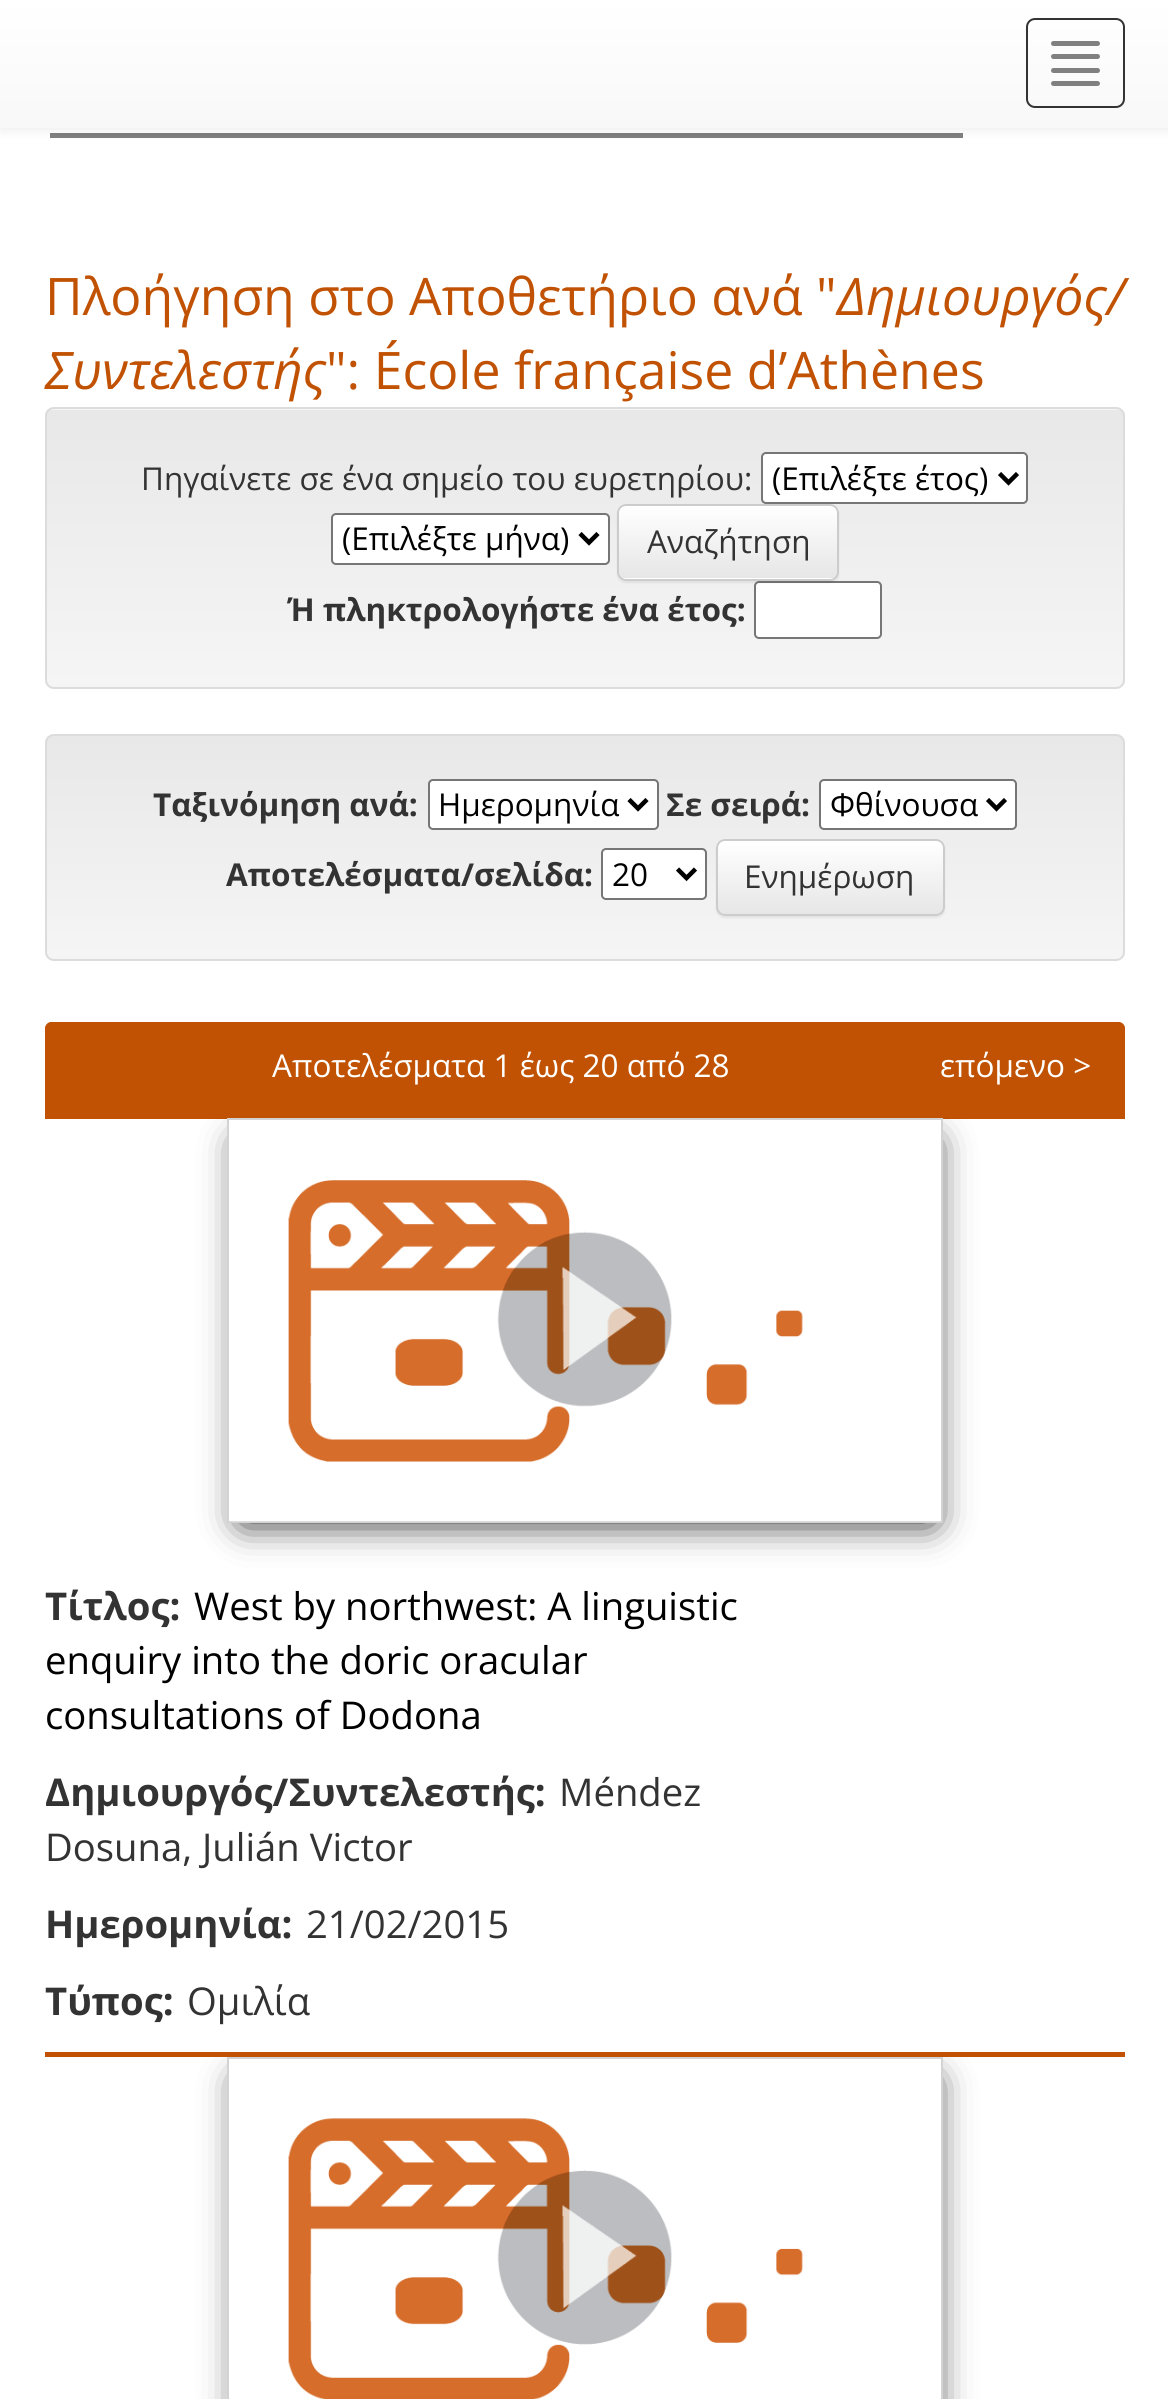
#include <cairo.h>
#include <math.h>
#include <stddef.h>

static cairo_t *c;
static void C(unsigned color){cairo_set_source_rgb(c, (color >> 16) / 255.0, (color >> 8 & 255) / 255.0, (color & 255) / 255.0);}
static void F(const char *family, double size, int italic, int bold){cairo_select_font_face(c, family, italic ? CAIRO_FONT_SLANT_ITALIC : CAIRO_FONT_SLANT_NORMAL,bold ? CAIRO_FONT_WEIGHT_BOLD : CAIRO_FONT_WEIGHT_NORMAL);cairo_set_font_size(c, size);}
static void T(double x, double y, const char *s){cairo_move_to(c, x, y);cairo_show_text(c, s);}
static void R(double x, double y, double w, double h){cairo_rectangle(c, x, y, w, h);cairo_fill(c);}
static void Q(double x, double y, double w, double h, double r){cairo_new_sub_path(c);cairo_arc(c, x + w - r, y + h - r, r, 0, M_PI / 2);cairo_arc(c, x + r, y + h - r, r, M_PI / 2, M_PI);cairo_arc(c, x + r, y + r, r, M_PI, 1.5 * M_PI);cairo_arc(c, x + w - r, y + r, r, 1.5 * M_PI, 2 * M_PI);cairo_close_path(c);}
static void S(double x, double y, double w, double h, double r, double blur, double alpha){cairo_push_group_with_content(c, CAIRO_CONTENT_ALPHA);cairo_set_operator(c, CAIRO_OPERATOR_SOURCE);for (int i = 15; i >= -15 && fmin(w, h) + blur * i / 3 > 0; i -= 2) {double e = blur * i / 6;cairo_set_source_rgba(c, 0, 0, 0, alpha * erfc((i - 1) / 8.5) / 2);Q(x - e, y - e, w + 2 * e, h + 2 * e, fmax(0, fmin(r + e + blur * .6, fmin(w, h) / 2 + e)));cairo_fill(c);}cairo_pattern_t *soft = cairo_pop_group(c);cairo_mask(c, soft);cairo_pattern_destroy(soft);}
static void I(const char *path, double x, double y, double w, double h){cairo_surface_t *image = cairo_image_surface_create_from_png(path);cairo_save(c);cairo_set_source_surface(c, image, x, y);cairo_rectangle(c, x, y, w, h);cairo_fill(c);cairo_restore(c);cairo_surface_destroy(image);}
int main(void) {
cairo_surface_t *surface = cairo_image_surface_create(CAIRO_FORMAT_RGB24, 1168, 2399);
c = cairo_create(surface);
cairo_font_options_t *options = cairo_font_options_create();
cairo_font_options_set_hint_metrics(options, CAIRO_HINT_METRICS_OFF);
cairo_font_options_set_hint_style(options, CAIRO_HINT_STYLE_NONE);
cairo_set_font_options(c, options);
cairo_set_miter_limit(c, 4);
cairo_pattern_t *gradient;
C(0xffffff);
cairo_paint(c);
C(0x808080);
R(50,133,913,5);
C(0x000000);
S(0,2,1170,129,0,5.5,.07);
gradient = cairo_pattern_create_linear(585,0,585,126);
cairo_pattern_add_color_stop_rgba(gradient,0,1,1,1,1);
cairo_pattern_add_color_stop_rgba(gradient,1,0.973,0.973,0.973,1);
cairo_set_source(c,gradient);
cairo_pattern_destroy(gradient);
R(0,0,1168,126);
C(0xf8f8f8);
R(0,126,1168,2);
Q(1027,19,97,88,8);
C(0x333333);
cairo_stroke(c);
C(0x808080);
Q(1051,41,49,5,2.5);
cairo_fill(c);
Q(1051,54,49,5,2.5);
cairo_fill(c);
Q(1051,68,49,5,2.5);
cairo_fill(c);
Q(1051,81,49,5,2.5);
cairo_fill(c);
F("Open Sans",51.75,0,0);
C(0xc15203);
T(45,315,"Πλοήγηση στο Αποθετήριο ανά \"");
F("Open Sans",51.75,1,0);
T(837,315,"Δημιουργός/");
T(45,389,"Συντελεστής");
F("Open Sans",51.75,0,0);
T(326,389,"\": École française d’Athènes");
C(0xf5f5f5);
Q(45,407,1080,282,9);
cairo_fill(c);
cairo_save(c);
Q(45,407,1080,282,9);
cairo_clip(c);
gradient = cairo_pattern_create_linear(585,409,585,686);
cairo_pattern_add_color_stop_rgba(gradient,0,0.91,0.91,0.91,1);
cairo_pattern_add_color_stop_rgba(gradient,1,0.961,0.961,0.961,1);
cairo_set_source(c,gradient);
cairo_pattern_destroy(gradient);
R(45,410,1080,276);
cairo_restore(c);
Q(46,408,1078,280,8);
C(0xdcdcdc);
cairo_stroke(c);
F("Open Sans",31.5,0,0);
C(0x333333);
T(141,490,"Πηγαίνετε σε ένα σημείο του ευρετηρίου:");
C(0xffffff);
Q(762,453,265,50,4);
cairo_fill_preserve(c);
C(0x767676);
cairo_stroke(c);
cairo_new_path(c);
cairo_move_to(c,999.5,473.5);
cairo_line_to(c,1008.5,482.5);
cairo_line_to(c,1017.5,473.5);
C(0x000000);
cairo_set_line_width(c,4.5);
cairo_stroke(c);
T(772,490,"(Επιλέξτε έτος)");
C(0xffffff);
Q(332,514,277,50,4);
cairo_fill_preserve(c);
C(0x767676);
cairo_set_line_width(c,2);
cairo_stroke(c);
cairo_new_path(c);
cairo_move_to(c,580,533.5);
cairo_line_to(c,589,542.5);
cairo_line_to(c,598,533.5);
C(0x000000);
cairo_set_line_width(c,4.5);
cairo_stroke(c);
T(342,550,"(Επιλέξτε μήνα)");
C(0xffffff);
Q(755,582,126,56,4);
cairo_fill_preserve(c);
C(0x767676);
cairo_set_line_width(c,2);
cairo_stroke(c);
C(0x000000);
S(617,506,222,77,9,1,.07);
C(0xffffff);
Q(617,504,222,77,9);
cairo_fill(c);
cairo_save(c);
Q(617,504,222,77,9);
cairo_clip(c);
gradient = cairo_pattern_create_linear(728,506,728,578);
cairo_pattern_add_color_stop_rgba(gradient,0,1,1,1,1);
cairo_pattern_add_color_stop_rgba(gradient,1,0.902,0.902,0.902,1);
cairo_set_source(c,gradient);
cairo_pattern_destroy(gradient);
R(617,506,222,72);
cairo_restore(c);
Q(618,505,220,75,8);
C(0xcccccc);
cairo_stroke(c);
C(0x333333);
T(647,553,"Αναζήτηση");
F("Open Sans",31.5,0,1);
T(287,621,"Ή πληκτρολογήστε ένα έτος:");
cairo_save(c);
Q(45,734,1080,227,9);
cairo_clip(c);
gradient = cairo_pattern_create_linear(585,736,585,959);
cairo_pattern_add_color_stop_rgba(gradient,0,0.91,0.91,0.91,1);
cairo_pattern_add_color_stop_rgba(gradient,1,0.961,0.961,0.961,1);
cairo_set_source(c,gradient);
cairo_pattern_destroy(gradient);
R(45,736,1080,223);
cairo_restore(c);
Q(46,735,1078,225,8);
C(0xdcdcdc);
cairo_stroke(c);
C(0x333333);
T(153,816,"Ταξινόμηση ανά:");
C(0xffffff);
Q(429,780,229,49,4);
cairo_fill_preserve(c);
C(0x767676);
cairo_stroke(c);
cairo_new_path(c);
cairo_move_to(c,629,799.5);
cairo_line_to(c,638,808.5);
cairo_line_to(c,647,799.5);
C(0x000000);
cairo_set_line_width(c,4.5);
cairo_stroke(c);
F("Open Sans",31.5,0,0);
T(438,816,"Ημερομηνία");
F("Open Sans",31.5,0,1);
C(0x333333);
T(666,816,"Σε σειρά:");
C(0xffffff);
Q(820,780,196,49,4);
cairo_fill_preserve(c);
C(0x767676);
cairo_set_line_width(c,2);
cairo_stroke(c);
cairo_new_path(c);
cairo_move_to(c,987.5,799.5);
cairo_line_to(c,996.5,808.5);
cairo_line_to(c,1005.5,799.5);
C(0x000000);
cairo_set_line_width(c,4.5);
cairo_stroke(c);
F("Open Sans",31.5,0,0);
T(830,816,"Φθίνουσα");
F("Open Sans",31.5,0,1);
C(0x333333);
T(226,886,"Αποτελέσματα/σελίδα:");
C(0xffffff);
Q(602,849,104,50,4);
cairo_fill_preserve(c);
C(0x767676);
cairo_set_line_width(c,2);
cairo_stroke(c);
cairo_new_path(c);
cairo_move_to(c,677.5,869);
cairo_line_to(c,686.5,878);
cairo_line_to(c,695.5,869);
C(0x000000);
cairo_set_line_width(c,4.5);
cairo_stroke(c);
F("Open Sans",31.5,0,0);
T(612,886,"20");
C(0x000000);
S(716,842,229,76,9,1,.07);
C(0xffffff);
Q(716,839,229,77,9);
cairo_fill(c);
cairo_save(c);
Q(716,839,229,77,9);
cairo_clip(c);
gradient = cairo_pattern_create_linear(830,842,830,914);
cairo_pattern_add_color_stop_rgba(gradient,0,1,1,1,1);
cairo_pattern_add_color_stop_rgba(gradient,1,0.902,0.902,0.902,1);
cairo_set_source(c,gradient);
cairo_pattern_destroy(gradient);
R(716,842,229,72);
cairo_restore(c);
Q(717,840,227,75,8);
C(0xcccccc);
cairo_set_line_width(c,2);
cairo_stroke(c);
C(0x333333);
T(744,888,"Ενημέρωση");
C(0xc15203);
cairo_new_path(c);
cairo_move_to(c,52,1022);
cairo_line_to(c,1118,1022);
cairo_curve_to(c,1122,1022,1125,1025,1125,1029);
cairo_line_to(c,1125,1114);
cairo_line_to(c,45,1114);
cairo_line_to(c,45,1029);
cairo_curve_to(c,45,1025,48,1022,52,1022);
cairo_close_path(c);
cairo_fill(c);
cairo_new_path(c);
cairo_move_to(c,52,1022);
cairo_line_to(c,1118,1022);
cairo_curve_to(c,1122,1022,1125,1025,1125,1029);
cairo_line_to(c,1125,1112);
cairo_line_to(c,45,1112);
cairo_line_to(c,45,1029);
cairo_curve_to(c,45,1025,48,1022,52,1022);
cairo_close_path(c);
cairo_fill(c);
C(0xffffff);
T(272,1077,"Αποτελέσματα 1 έως 20 από 28");
T(940,1077,"επόμενο >");
C(0xc15203);
R(45,1114,1080,5);
cairo_save(c);
cairo_rectangle(c,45,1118,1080,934);
cairo_clip(c);
cairo_set_fill_rule(c,CAIRO_FILL_RULE_EVEN_ODD);
cairo_new_path(c);
cairo_move_to(c,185,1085);
cairo_line_to(c,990,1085);
cairo_line_to(c,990,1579);
cairo_line_to(c,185,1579);
cairo_close_path(c);
cairo_move_to(c,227,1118);
cairo_line_to(c,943,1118);
cairo_line_to(c,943,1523);
cairo_line_to(c,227,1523);
cairo_close_path(c);
cairo_clip(c);
C(0x000000);
S(243,1143,689,378,0,19,.96);
cairo_restore(c);
cairo_rectangle(c,228,1119,714,403);
C(0xd3d3d3);
cairo_stroke(c);
I("1.png",229,1180,712,342);
F("Open Sans",38.25,0,1);
C(0x333333);
T(45,1620,"Τίτλος:");
F("Open Sans",38.25,0,0);
C(0x000000);
T(194,1620,"West by northwest: A linguistic");
T(45,1674,"enquiry into the doric oracular");
T(45,1729,"consultations of Dodona");
F("Open Sans",38.25,0,1);
C(0x333333);
T(45,1806,"Δημιουργός/Συντελεστής:");
F("Open Sans",38.25,0,0);
T(559,1806,"Méndez");
T(45,1861,"Dosuna, Julián Victor");
F("Open Sans",38.25,0,1);
T(45,1938,"Ημερομηνία:");
F("Open Sans",38.25,0,0);
T(306,1938,"21/02/2015");
F("Open Sans",38.25,0,1);
T(45,2015,"Τύπος:");
F("Open Sans",38.25,0,0);
T(187,2015,"Ομιλία");
C(0xc15203);
R(45,2052,1080,5);
cairo_save(c);
cairo_rectangle(c,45,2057,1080,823);
cairo_clip(c);
cairo_set_fill_rule(c,CAIRO_FILL_RULE_EVEN_ODD);
cairo_new_path(c);
cairo_move_to(c,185,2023);
cairo_line_to(c,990,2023);
cairo_line_to(c,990,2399);
cairo_line_to(c,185,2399);
cairo_close_path(c);
cairo_move_to(c,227,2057);
cairo_line_to(c,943,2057);
cairo_line_to(c,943,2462);
cairo_line_to(c,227,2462);
cairo_close_path(c);
cairo_clip(c);
C(0x000000);
S(243,2081,689,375,0,19,.96);
cairo_restore(c);
cairo_rectangle(c,228,2058,714,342);
C(0xd3d3d3);
cairo_stroke(c);
I("2.png",288,2118,515,281);
cairo_surface_write_to_png(surface, "o.png");
cairo_font_options_destroy(options);
cairo_destroy(c);
cairo_surface_destroy(surface);
return 0;
}
